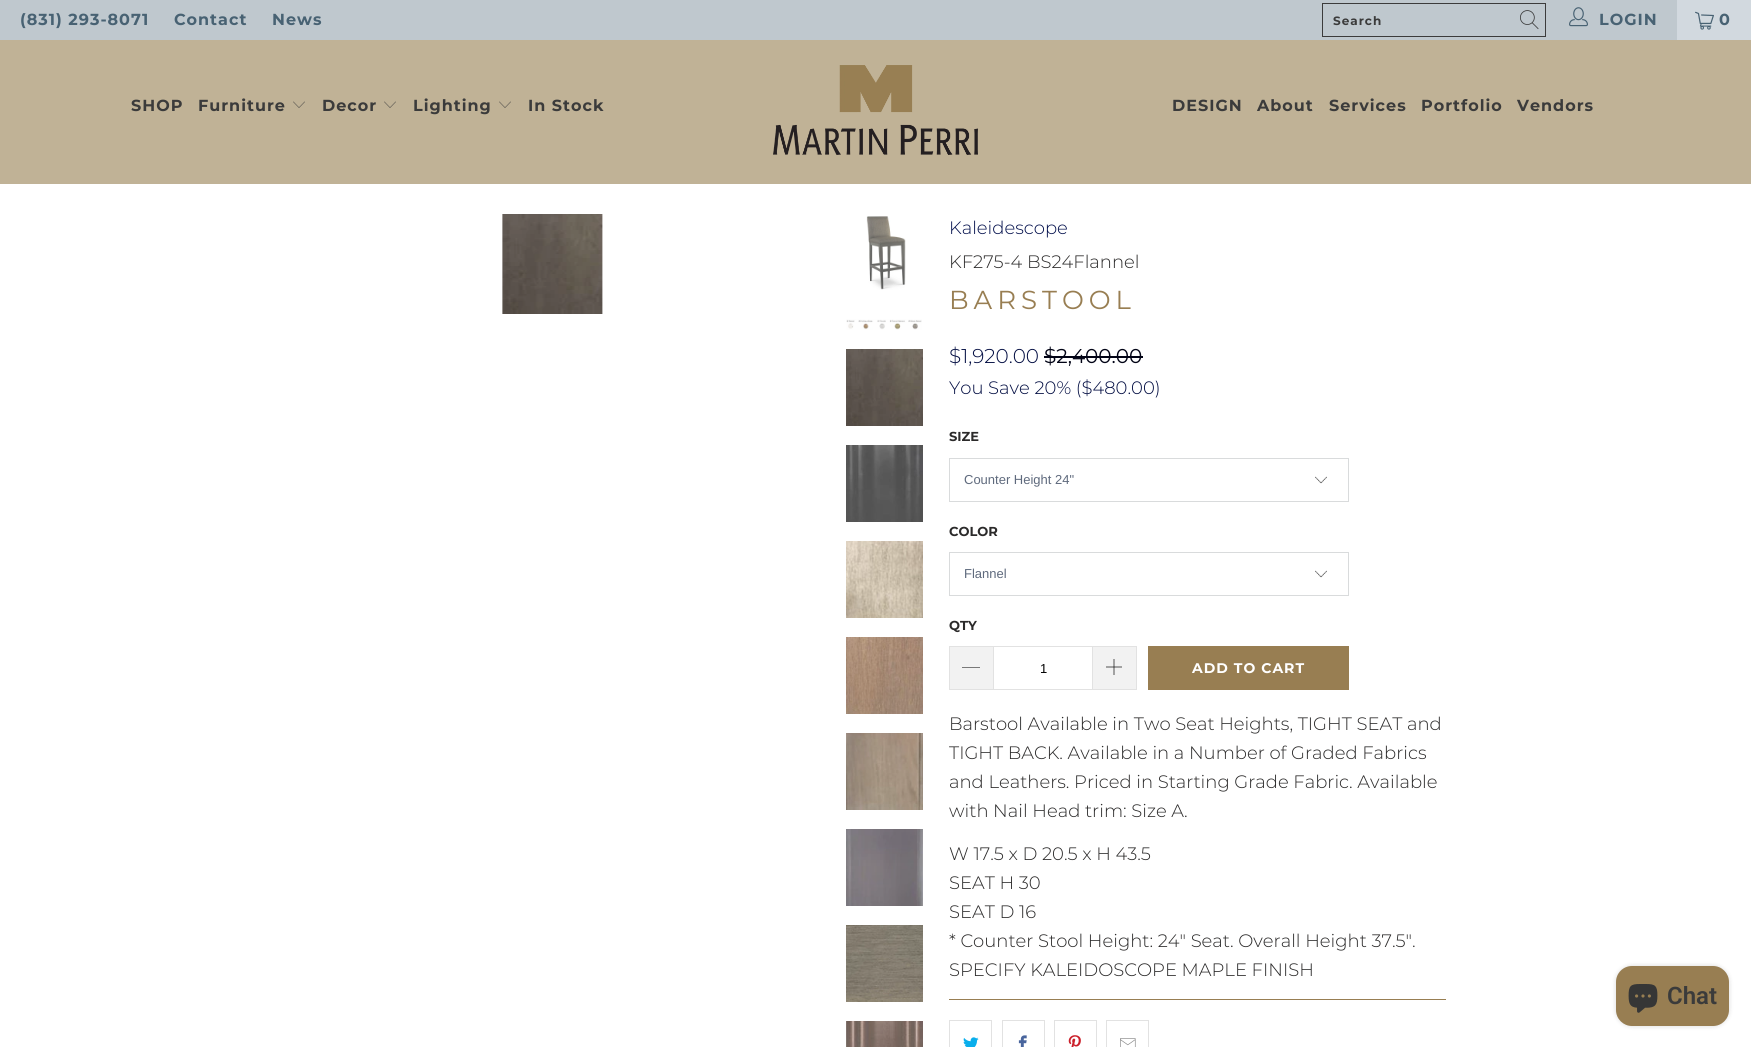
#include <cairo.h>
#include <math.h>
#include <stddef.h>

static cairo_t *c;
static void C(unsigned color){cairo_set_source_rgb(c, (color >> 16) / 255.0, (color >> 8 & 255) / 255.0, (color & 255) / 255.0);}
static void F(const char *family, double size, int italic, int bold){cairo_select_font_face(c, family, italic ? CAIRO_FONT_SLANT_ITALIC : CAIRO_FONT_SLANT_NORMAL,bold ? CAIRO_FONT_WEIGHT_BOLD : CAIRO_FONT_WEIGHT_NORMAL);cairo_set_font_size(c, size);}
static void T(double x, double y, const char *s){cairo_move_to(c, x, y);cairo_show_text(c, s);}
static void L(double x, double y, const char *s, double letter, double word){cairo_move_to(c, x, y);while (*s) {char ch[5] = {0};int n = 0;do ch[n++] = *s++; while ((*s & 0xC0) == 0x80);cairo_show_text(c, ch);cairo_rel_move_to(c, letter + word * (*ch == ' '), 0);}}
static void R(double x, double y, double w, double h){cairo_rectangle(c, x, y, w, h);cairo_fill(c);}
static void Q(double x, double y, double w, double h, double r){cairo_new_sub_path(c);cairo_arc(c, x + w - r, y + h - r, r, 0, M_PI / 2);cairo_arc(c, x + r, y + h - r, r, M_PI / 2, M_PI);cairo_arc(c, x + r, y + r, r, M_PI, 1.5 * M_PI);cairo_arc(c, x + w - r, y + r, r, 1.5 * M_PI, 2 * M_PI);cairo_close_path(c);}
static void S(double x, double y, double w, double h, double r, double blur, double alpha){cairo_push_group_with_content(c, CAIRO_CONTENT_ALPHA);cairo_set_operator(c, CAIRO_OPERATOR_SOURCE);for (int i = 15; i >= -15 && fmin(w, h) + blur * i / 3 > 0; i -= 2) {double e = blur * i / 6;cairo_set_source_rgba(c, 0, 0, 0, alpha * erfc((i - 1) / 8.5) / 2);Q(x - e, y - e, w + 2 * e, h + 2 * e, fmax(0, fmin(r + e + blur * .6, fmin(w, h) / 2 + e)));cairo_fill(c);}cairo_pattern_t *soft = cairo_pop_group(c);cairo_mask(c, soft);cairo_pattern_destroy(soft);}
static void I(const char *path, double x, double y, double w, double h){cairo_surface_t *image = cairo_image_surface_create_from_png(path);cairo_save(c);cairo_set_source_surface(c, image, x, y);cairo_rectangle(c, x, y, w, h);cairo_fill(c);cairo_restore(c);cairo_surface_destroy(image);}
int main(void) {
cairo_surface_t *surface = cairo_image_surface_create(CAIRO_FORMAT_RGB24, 1751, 1047);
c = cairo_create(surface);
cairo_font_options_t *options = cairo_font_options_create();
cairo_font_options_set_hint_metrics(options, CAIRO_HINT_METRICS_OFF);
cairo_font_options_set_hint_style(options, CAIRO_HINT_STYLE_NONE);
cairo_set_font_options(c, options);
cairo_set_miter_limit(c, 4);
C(0xffffff);
cairo_paint(c);
C(0xbfc8ce);
R(0,0,1677,40);
F("Montserrat",16,0,1);
C(0x486273);
L(20,25,"(831) 293-8071",1,0);
L(174,25,"Contact",1,0);
L(272,25,"News",1,0);
cairo_rectangle(c,1322.5,3.5,223,33);
C(0x3b3b3b);
cairo_set_line_width(c,1);
cairo_stroke(c);
F("Montserrat",12,0,1);
L(1333,25,"Search",1,0);
I("1.png",1520,10,19,20);
I("2.png",1569,7,19,20);
F("Montserrat",16,0,1);
C(0x486273);
L(1599,25,"LOGIN",1,0);
C(0xd2d9df);
R(1677,0,74,40);
I("3.png",1695,11,19,19);
C(0x486273);
L(1719,25,"0",1,0);
C(0xc0b296);
R(0,40,1751,144);
C(0x3b3b3b);
L(131,111,"SHOP",1,0);
L(198,111,"Furniture",1,0);
I("4.png",293,101,12,7);
L(322,111,"Decor",1,0);
I("4.png",384,101,12,7);
L(413,111,"Lighting",1,0);
I("4.png",499,101,12,7);
L(528,111,"In Stock",1,0);
I("5.png",773,65,205,90);
L(1172,111,"DESIGN",1,0);
L(1257,111,"About",1,0);
L(1329,111,"Services",1,0);
L(1421,111,"Portfolio",1,0);
L(1517,111,"Vendors",1,0);
I("6.png",502,214,101,100);
I("7.png",866,216,40,74);
I("8.png",846,319,76,11);
I("9.png",846,349,77,77);
I("10.png",846,445,77,77);
I("11.png",846,541,77,77);
I("12.png",846,637,77,77);
I("13.png",846,733,77,77);
I("14.png",846,829,77,77);
I("15.png",846,925,77,77);
I("16.png",846,1021,77,26);
F("Montserrat Light",18,0,0);
C(0x020f4c);
T(949,234,"Kaleidescope");
C(0x2b2a2a);
T(949,268,"KF275-4 BS24Flannel");
F("Montserrat",26,0,0);
C(0x987e52);
L(949,309,"BARSTOOL",5,0);
F("Montserrat Light",20,0,0);
C(0x010c41);
T(949,363,"$1,920.00");
F("Montserrat",20,0,0);
C(0x010315);
T(1044,363,"$2,400.00");
R(1044,356,99,2);
F("Montserrat Light",18,0,0);
C(0x010c41);
T(949,394,"You Save 20% ($480.00)");
F("Montserrat",13,0,1);
C(0x2b2a2a);
T(949,441,"SIZE");
I("17.png",1315,476,12,8);
cairo_rectangle(c,949.5,458.5,399,43);
C(0xd9dbdc);
cairo_stroke(c);
F("Liberation Sans",13,0,0);
C(0x5f6a7d);
T(964,484,"Counter Height 24\"");
F("Montserrat",13,0,1);
C(0x2b2a2a);
T(949,536,"COLOR");
I("17.png",1315,570,12,8);
cairo_rectangle(c,949.5,552.5,399,43);
C(0xd9dbdc);
cairo_stroke(c);
F("Liberation Sans",13,0,0);
C(0x5f6a7d);
T(964,578,"Flannel");
F("Montserrat",13,0,1);
C(0x2b2a2a);
T(949,630,"QTY");
C(0xf2f2f2);
R(950,647,43,42);
C(0xe2e2e2);
R(949,646,44,1);
R(949,689,44,1);
R(949,646,1,44);
C(0x000000);
cairo_new_path(c);
cairo_move_to(c,962,667);
cairo_line_to(c,980,667);
cairo_line_to(c,980,667.5);
cairo_line_to(c,962,667.5);
cairo_close_path(c);
cairo_fill(c);
cairo_rectangle(c,993.5,646.5,99,43);
C(0xe2e2e2);
cairo_stroke(c);
F("Liberation Sans",13,0,0);
C(0x000000);
T(1040,673,"1");
C(0xf2f2f2);
R(1093,647,43,42);
C(0xe2e2e2);
R(1093,646,44,1);
R(1136,646,1,44);
R(1093,689,44,1);
I("18.png",1106,659,16,16);
C(0x987e52);
R(1148,646,201,44);
F("Montserrat",14,0,1);
C(0xffffff);
L(1192,673,"ADD TO CART",1,0);
F("Montserrat Light",18,0,0);
C(0x2b2a2a);
T(949,730,"Barstool Available in Two Seat Heights, TIGHT SEAT and");
T(949,759,"TIGHT BACK. Available in a Number of Graded Fabrics");
T(949,788,"and Leathers. Priced in Starting Grade Fabric. Available");
T(949,817,"with Nail Head trim: Size A.");
T(949,860,"W 17.5 x D 20.5 x H 43.5");
T(949,889,"SEAT H 30");
T(949,918,"SEAT D 16");
T(949,947,"* Counter Stool Height: 24\" Seat. Overall Height 37.5\".");
T(949,976,"SPECIFY KALEIDOSCOPE MAPLE FINISH");
C(0x987e52);
R(949,999,497,1);
cairo_rectangle(c,949.5,1020.5,42,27);
C(0xe2e2e2);
cairo_stroke(c);
I("19.png",963,1037,16,10);
cairo_rectangle(c,1002.5,1020.5,42,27);
cairo_stroke(c);
I("20.png",1018,1035,9,12);
cairo_rectangle(c,1054.5,1020.5,42,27);
cairo_stroke(c);
I("21.png",1068,1035,13,12);
cairo_rectangle(c,1106.5,1020.5,42,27);
cairo_stroke(c);
I("22.png",1120,1038,16,9);
C(0x000000);
S(1616,966,113,60,16,2.5,.15);
C(0x987e52);
Q(1616,966,113,60,16);
cairo_fill(c);
I("23.png",1628,984,30,29);
F("Roboto SemiBold",24,0,0);
C(0x3b3b3b);
T(1667,1004,"Chat");
cairo_surface_write_to_png(surface, "o.png");
cairo_font_options_destroy(options);
cairo_destroy(c);
cairo_surface_destroy(surface);
return 0;
}
